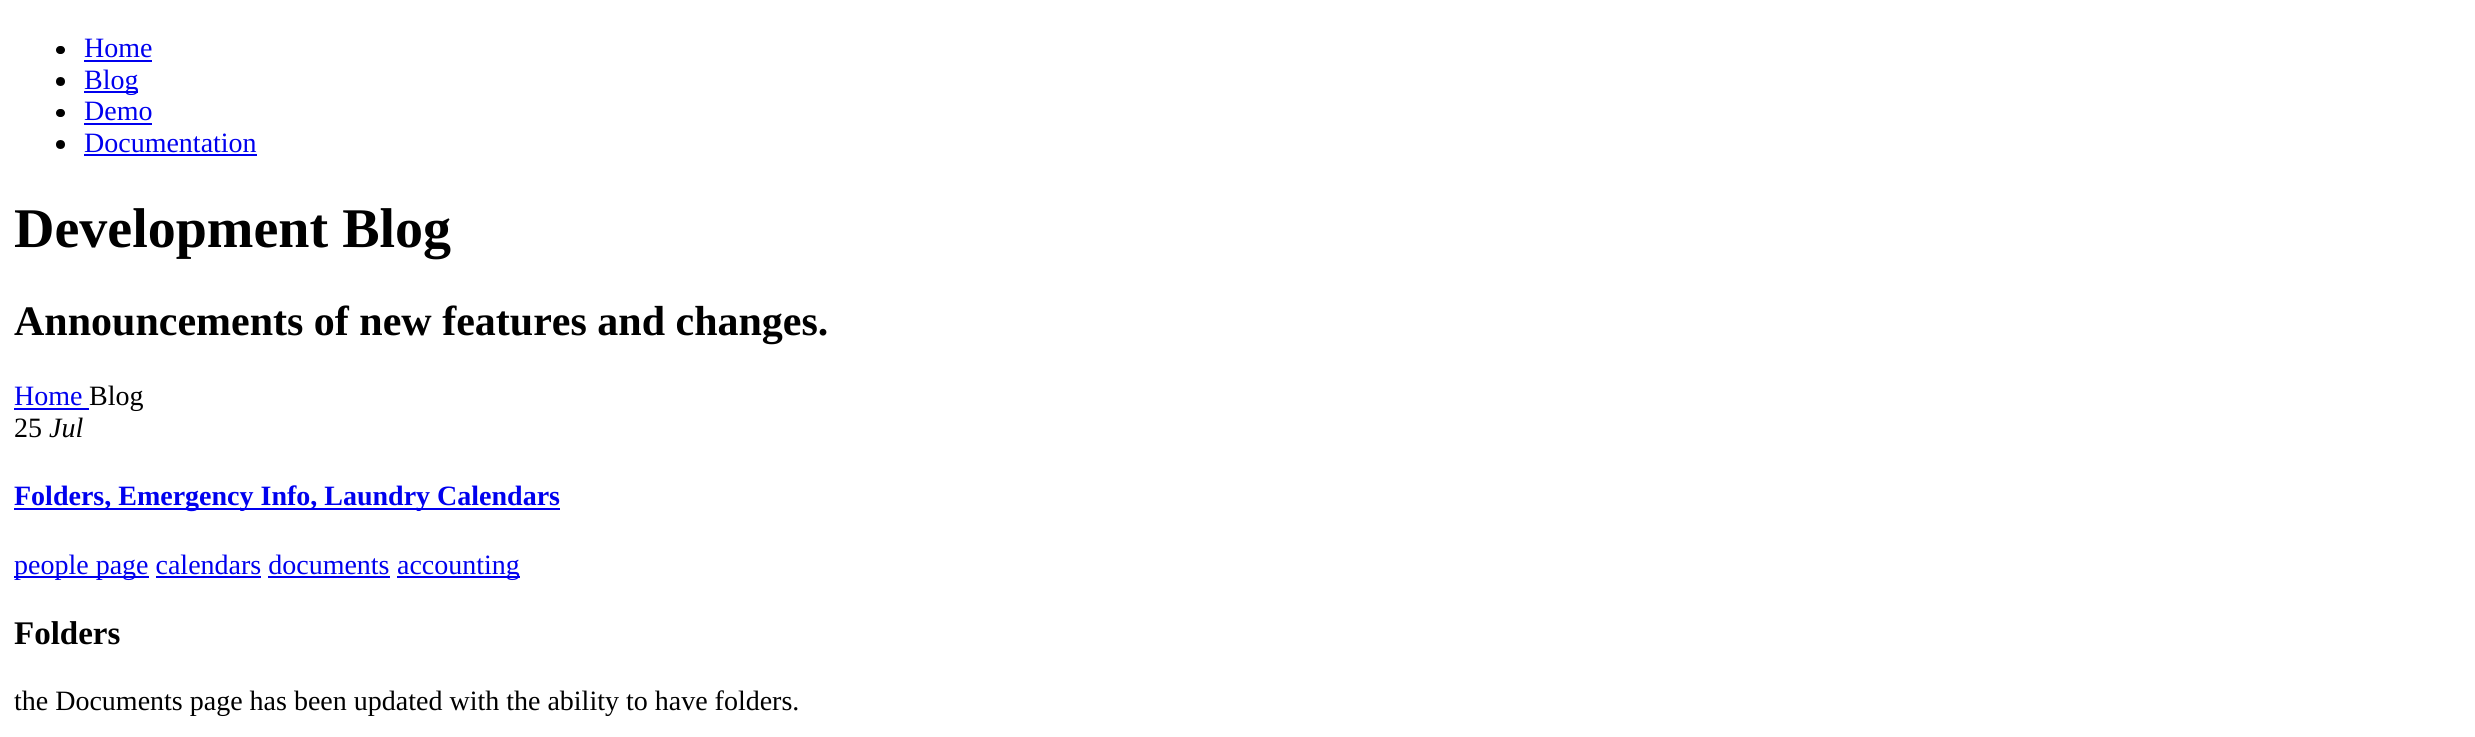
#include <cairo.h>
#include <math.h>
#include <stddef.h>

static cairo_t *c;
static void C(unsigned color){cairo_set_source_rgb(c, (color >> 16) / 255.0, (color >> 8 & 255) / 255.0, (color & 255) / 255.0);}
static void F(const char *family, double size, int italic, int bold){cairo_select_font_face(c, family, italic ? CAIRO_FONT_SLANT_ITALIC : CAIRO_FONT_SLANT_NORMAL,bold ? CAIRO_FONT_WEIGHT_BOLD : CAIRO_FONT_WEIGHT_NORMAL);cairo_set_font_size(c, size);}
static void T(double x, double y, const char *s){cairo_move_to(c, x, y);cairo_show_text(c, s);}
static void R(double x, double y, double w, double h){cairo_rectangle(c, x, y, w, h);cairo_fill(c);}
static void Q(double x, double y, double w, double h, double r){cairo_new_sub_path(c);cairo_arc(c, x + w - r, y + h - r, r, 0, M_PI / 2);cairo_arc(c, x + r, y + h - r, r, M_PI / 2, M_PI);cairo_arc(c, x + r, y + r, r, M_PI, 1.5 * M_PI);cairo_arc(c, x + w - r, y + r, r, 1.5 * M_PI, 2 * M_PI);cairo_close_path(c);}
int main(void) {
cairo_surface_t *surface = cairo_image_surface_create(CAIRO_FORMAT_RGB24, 2475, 737);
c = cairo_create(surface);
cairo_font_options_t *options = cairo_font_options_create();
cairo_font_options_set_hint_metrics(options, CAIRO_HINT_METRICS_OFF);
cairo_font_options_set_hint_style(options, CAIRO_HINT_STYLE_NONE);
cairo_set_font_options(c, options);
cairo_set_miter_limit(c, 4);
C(0xffffff);
cairo_paint(c);
C(0x000000);
Q(56,46,9,8,4);
cairo_fill(c);
F("Liberation Serif",28,0,0);
C(0x0000ee);
T(84,57,"Home");
R(84,60,68,2);
C(0x000000);
cairo_new_path(c);
cairo_arc(c,60.5,81.5,4.5,0,2 * M_PI);
cairo_fill(c);
C(0x0000ee);
R(84,91,54,2);
T(84,89,"Blog");
C(0x000000);
Q(56,109,9,8,4);
cairo_fill(c);
C(0x0000ee);
T(84,120,"Demo");
R(84,123,68,2);
C(0x000000);
cairo_new_path(c);
cairo_arc(c,60.5,144.5,4.5,0,2 * M_PI);
cairo_fill(c);
C(0x0000ee);
T(84,152,"Documentation");
R(84,154,173,2);
F("Liberation Serif",56,0,1);
C(0x000000);
T(14,247,"Development Blog");
F("Liberation Serif",42,0,1);
T(14,335,"Announcements of new features and changes.");
F("Liberation Serif",28,0,0);
C(0x0000ee);
T(14,405,"Home");
R(14,408,75,2);
C(0x000000);
T(89,405,"Blog");
T(14,437,"25");
F("Liberation Serif",28,1,0);
T(49,437,"Jul");
C(0x0000ee);
R(14,508,546,2);
F("Liberation Serif",28,0,1);
T(14,505,"Folders, Emergency Info, Laundry Calendars");
R(14,576,135,2);
F("Liberation Serif",28,0,0);
T(14,574,"people page calendars documents");
R(156,576,105,2);
R(268,576,122,2);
R(397,576,123,2);
T(397,574,"accounting");
F("Liberation Serif",33,0,1);
C(0x000000);
T(14,644,"Folders");
F("Liberation Serif",28,0,0);
T(14,710,"the Documents page has been updated with the ability to have folders.");
cairo_surface_write_to_png(surface, "o.png");
cairo_font_options_destroy(options);
cairo_destroy(c);
cairo_surface_destroy(surface);
return 0;
}
